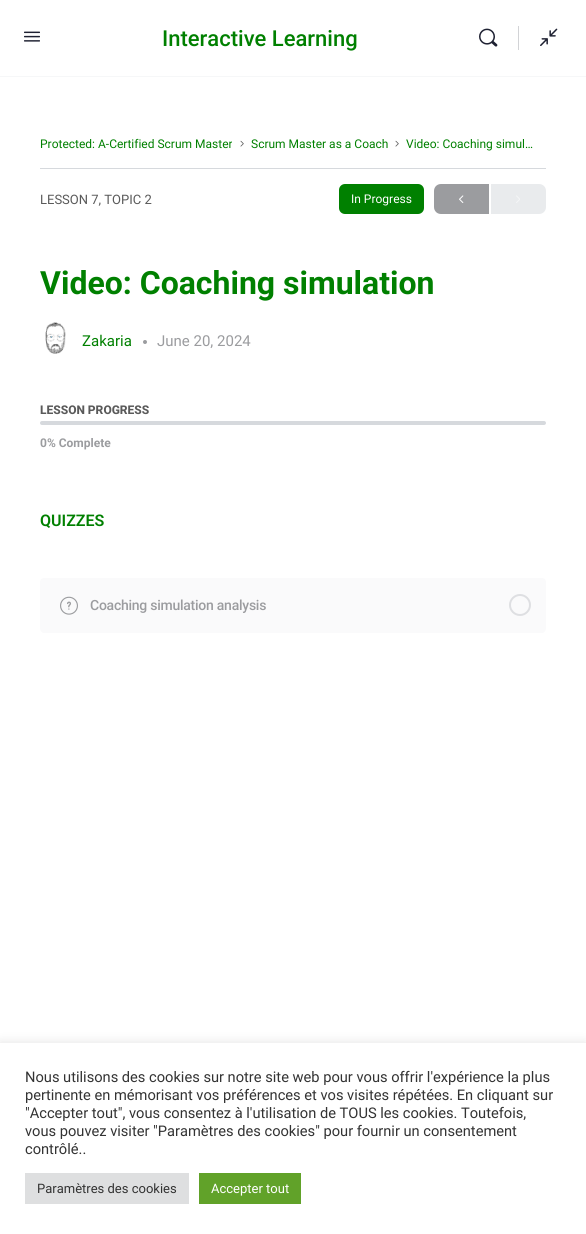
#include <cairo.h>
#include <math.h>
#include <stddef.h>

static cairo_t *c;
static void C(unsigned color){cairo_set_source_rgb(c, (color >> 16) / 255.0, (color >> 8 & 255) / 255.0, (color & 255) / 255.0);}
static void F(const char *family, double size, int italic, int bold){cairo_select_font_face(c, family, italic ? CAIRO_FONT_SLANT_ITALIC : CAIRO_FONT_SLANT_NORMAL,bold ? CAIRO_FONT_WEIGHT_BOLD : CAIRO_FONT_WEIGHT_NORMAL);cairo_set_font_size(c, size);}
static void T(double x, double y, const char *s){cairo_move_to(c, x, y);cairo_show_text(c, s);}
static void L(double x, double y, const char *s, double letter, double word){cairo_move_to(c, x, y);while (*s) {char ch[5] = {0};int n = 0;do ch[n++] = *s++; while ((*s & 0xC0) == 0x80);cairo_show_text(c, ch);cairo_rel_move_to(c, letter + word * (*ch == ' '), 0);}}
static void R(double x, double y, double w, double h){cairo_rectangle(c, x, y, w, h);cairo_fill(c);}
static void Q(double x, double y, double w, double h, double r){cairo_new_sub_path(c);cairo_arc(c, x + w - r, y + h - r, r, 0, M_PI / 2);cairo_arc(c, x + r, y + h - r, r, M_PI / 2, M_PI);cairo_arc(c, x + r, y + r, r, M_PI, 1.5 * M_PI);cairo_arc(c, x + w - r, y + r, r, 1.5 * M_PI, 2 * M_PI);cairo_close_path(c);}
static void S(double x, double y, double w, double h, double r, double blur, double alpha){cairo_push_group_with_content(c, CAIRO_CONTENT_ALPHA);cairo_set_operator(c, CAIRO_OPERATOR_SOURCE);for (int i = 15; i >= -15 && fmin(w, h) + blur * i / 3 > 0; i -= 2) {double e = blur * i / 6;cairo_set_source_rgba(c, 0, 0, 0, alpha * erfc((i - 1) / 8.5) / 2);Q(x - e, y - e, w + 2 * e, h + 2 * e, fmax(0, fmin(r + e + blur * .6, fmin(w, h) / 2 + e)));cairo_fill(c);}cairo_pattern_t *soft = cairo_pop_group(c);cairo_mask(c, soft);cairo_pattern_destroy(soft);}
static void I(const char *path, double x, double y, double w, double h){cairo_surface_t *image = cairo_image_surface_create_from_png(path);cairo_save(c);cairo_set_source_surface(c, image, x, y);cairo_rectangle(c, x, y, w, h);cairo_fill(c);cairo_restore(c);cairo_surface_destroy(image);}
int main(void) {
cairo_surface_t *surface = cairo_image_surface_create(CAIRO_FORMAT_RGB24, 586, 1234);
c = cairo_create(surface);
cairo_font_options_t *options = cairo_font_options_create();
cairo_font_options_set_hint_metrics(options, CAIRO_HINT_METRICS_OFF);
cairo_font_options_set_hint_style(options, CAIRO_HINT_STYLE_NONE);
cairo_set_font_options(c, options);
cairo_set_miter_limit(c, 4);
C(0xffffff);
cairo_paint(c);
C(0xf6f7f8);
R(0,76,586,1);
I("1.png",24,31,16,11);
F("Roboto Medium",22,0,0);
C(0x008000);
T(162,46,"Interactive Learning");
I("2.png",479,28,19,19);
C(0xd2d3d6);
R(518,26,1,24);
I("3.png",540,28,18,18);
C(0xd6d9dd);
R(40,168,506,1);
F("Roboto",12,0,0);
C(0x008000);
T(40,148,"Protected: A-Certified Scrum Master");
I("4.png",240,140,4,7);
T(251,148,"Scrum Master as a Coach");
I("4.png",395,140,4,7);
T(406,148,"Video: Coaching simul…");
F("Roboto",13,0,0);
C(0x5a5a5a);
T(40,204,"LESSON 7, TOPIC 2");
C(0x008000);
Q(339,184,85,30,6);
cairo_fill(c);
F("Roboto",12,0,0);
C(0xffffff);
T(351,203,"In Progress");
C(0x9b9c9f);
cairo_new_path(c);
cairo_move_to(c,441,184);
cairo_line_to(c,489,184);
cairo_line_to(c,489,214);
cairo_line_to(c,441,214);
cairo_curve_to(c,437,214,434,211,434,207);
cairo_line_to(c,434,191);
cairo_curve_to(c,434,187,437,184,441,184);
cairo_close_path(c);
cairo_fill(c);
I("5.png",459,195,5,8);
C(0xe9ebed);
cairo_new_path(c);
cairo_move_to(c,491,184);
cairo_line_to(c,539,184);
cairo_curve_to(c,543,184,546,187,546,191);
cairo_line_to(c,546,207);
cairo_curve_to(c,546,211,543,214,539,214);
cairo_line_to(c,491,214);
cairo_close_path(c);
cairo_fill(c);
I("6.png",516,195,4,8);
F("Roboto",32,0,1);
C(0x008000);
T(40,294,"Video: Coaching simulation");
I("7.png",45,322,21,32);
F("Roboto",15,0,0);
T(82,346,"Zakaria");
C(0x9b9c9f);
cairo_new_path(c);
cairo_arc(c,145,342,2,0,2 * M_PI);
cairo_fill(c);
T(157,346,"June 20, 2024");
F("Roboto ExtraBold",12,0,0);
C(0x5a5a5a);
T(40,414,"LESSON PROGRESS");
C(0xd6d9dd);
Q(40,421,506,4,2);
cairo_fill(c);
F("Roboto",12,0,1);
C(0x9b9c9f);
T(40,447,"0% Complete");
F("Roboto SemiBold",16,0,0);
C(0x008000);
T(40,526,"QUIZZES");
cairo_save(c);
Q(40,507,506,127,6);
cairo_clip(c);
C(0xfafafb);
Q(40,578,506,55,4);
cairo_fill(c);
cairo_restore(c);
I("8.png",60,596,18,19);
F("Roboto Medium",14,0,0);
C(0x9b9c9f);
L(90,610,"Coaching simulation analysis",-.25,0);
cairo_new_path(c);
cairo_arc(c,520,605,10,0,2 * M_PI);
C(0xdedfe2);
cairo_stroke(c);
C(0xacabab);
S(0,1042,586,191,0,5,.3);
C(0xffffff);
R(0,1043,586,191);
F("Roboto",14.65,0,0);
C(0x333333);
T(25,1082,"Nous utilisons des cookies sur notre site web pour vous offrir l'expérience la plus");
T(25,1100,"pertinente en mémorisant vos préférences et vos visites répétées. En cliquant sur");
T(25,1118,"\"Accepter tout\", vous consentez à l'utilisation de TOUS les cookies. Toutefois,");
T(25,1136,"vous pouvez visiter \"Paramètres des cookies\" pour fournir un consentement");
T(25,1154,"contrôlé..");
C(0xdedfe0);
R(25,1173,164,31);
F("Roboto",13,0,0);
C(0x333333);
T(37,1193,"Paramètres des cookies");
C(0x61a229);
R(199,1173,102,31);
C(0xffffff);
T(211,1193,"Accepter tout");
cairo_surface_write_to_png(surface, "o.png");
cairo_font_options_destroy(options);
cairo_destroy(c);
cairo_surface_destroy(surface);
return 0;
}
